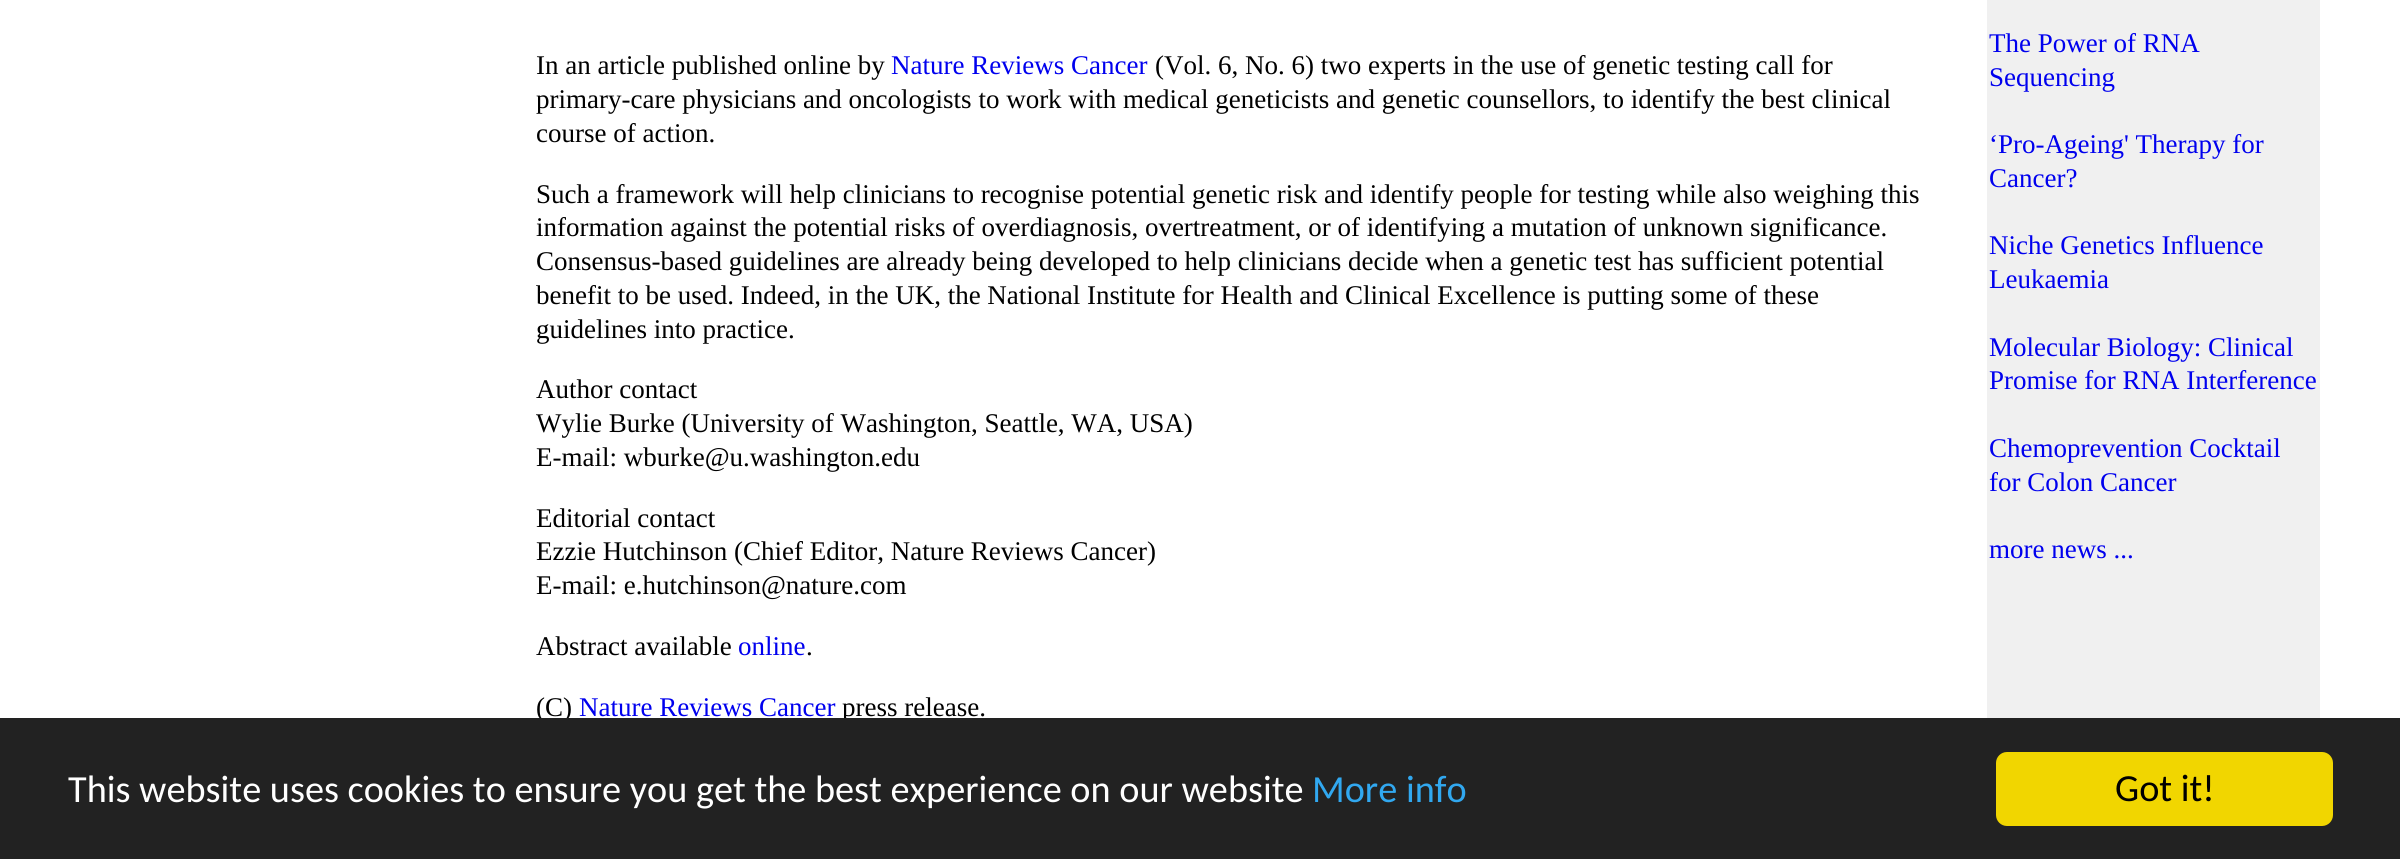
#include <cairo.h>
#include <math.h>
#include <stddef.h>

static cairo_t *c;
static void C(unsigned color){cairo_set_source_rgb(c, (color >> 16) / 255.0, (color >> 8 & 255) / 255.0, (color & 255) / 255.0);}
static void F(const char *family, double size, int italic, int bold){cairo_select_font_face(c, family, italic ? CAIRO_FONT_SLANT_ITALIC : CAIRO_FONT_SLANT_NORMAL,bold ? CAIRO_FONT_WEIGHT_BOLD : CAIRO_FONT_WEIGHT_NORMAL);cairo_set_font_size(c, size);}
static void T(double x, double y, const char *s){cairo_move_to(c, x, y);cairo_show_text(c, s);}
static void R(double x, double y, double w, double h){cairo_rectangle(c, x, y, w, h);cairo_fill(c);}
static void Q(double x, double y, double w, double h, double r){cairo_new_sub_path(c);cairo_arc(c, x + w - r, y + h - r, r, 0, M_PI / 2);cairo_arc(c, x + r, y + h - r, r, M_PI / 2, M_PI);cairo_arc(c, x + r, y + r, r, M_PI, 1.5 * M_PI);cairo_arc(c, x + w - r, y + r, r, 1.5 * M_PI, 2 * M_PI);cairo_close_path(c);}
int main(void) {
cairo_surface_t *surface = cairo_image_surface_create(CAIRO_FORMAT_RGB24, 2400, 859);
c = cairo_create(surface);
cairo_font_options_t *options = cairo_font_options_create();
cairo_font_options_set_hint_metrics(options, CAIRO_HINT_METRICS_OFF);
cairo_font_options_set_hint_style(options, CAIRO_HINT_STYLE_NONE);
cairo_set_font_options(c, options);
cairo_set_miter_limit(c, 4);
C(0xffffff);
cairo_paint(c);
F("Liberation Serif",27,0,0);
C(0x000000);
T(536,74,"In an article published online by");
C(0x0000ee);
T(891,74,"Nature Reviews Cancer");
C(0x000000);
T(1155,74,"(Vol. 6, No. 6) two experts in the use of genetic testing call for");
T(536,108,"primary-care physicians and oncologists to work with medical geneticists and genetic counsellors, to identify the best clinical");
T(536,142,"course of action.");
T(536,203,"Such a framework will help clinicians to recognise potential genetic risk and identify people for testing while also weighing this");
T(536,236,"information against the potential risks of overdiagnosis, overtreatment, or of identifying a mutation of unknown significance.");
T(536,270,"Consensus-based guidelines are already being developed to help clinicians decide when a genetic test has sufficient potential");
T(536,304,"benefit to be used. Indeed, in the UK, the National Institute for Health and Clinical Excellence is putting some of these");
T(536,338,"guidelines into practice.");
T(536,398,"Author contact");
T(536,432,"Wylie Burke (University of Washington, Seattle, WA, USA)");
T(536,466,"E-mail: wburke@u.washington.edu");
T(536,527,"Editorial contact");
T(536,560,"Ezzie Hutchinson (Chief Editor, Nature Reviews Cancer)");
T(536,594,"E-mail: e.hutchinson@nature.com");
T(536,655,"Abstract available");
C(0x0000ee);
T(738,655,"online");
C(0x000000);
T(806,655,".");
T(536,716,"(C)");
C(0x0000ee);
T(579,716,"Nature Reviews Cancer");
C(0x000000);
T(842,716,"press release.");
C(0xf0f0f0);
R(1987,0,333,718);
C(0x0000ee);
T(1989,52,"The Power of RNA");
T(1989,86,"Sequencing");
T(1989,153,"‘Pro-Ageing' Therapy for");
T(1989,187,"Cancer?");
T(1989,254,"Niche Genetics Influence");
T(1989,288,"Leukaemia");
T(1989,356,"Molecular Biology: Clinical");
T(1989,389,"Promise for RNA Interference");
T(1989,457,"Chemoprevention Cocktail");
T(1989,491,"for Colon Cancer");
T(1989,558,"more news ...");
C(0x222222);
R(0,718,2400,141);
F("Carlito",38.25,0,0);
C(0xffffff);
T(68,802,"This website uses cookies to ensure you get the best experience on our website");
C(0x31a8f0);
T(1312,802,"More info");
C(0xf1d600);
Q(1996,752,337,74,11);
cairo_fill(c);
C(0x000000);
T(2115,801,"Got it!");
cairo_surface_write_to_png(surface, "o.png");
cairo_font_options_destroy(options);
cairo_destroy(c);
cairo_surface_destroy(surface);
return 0;
}
